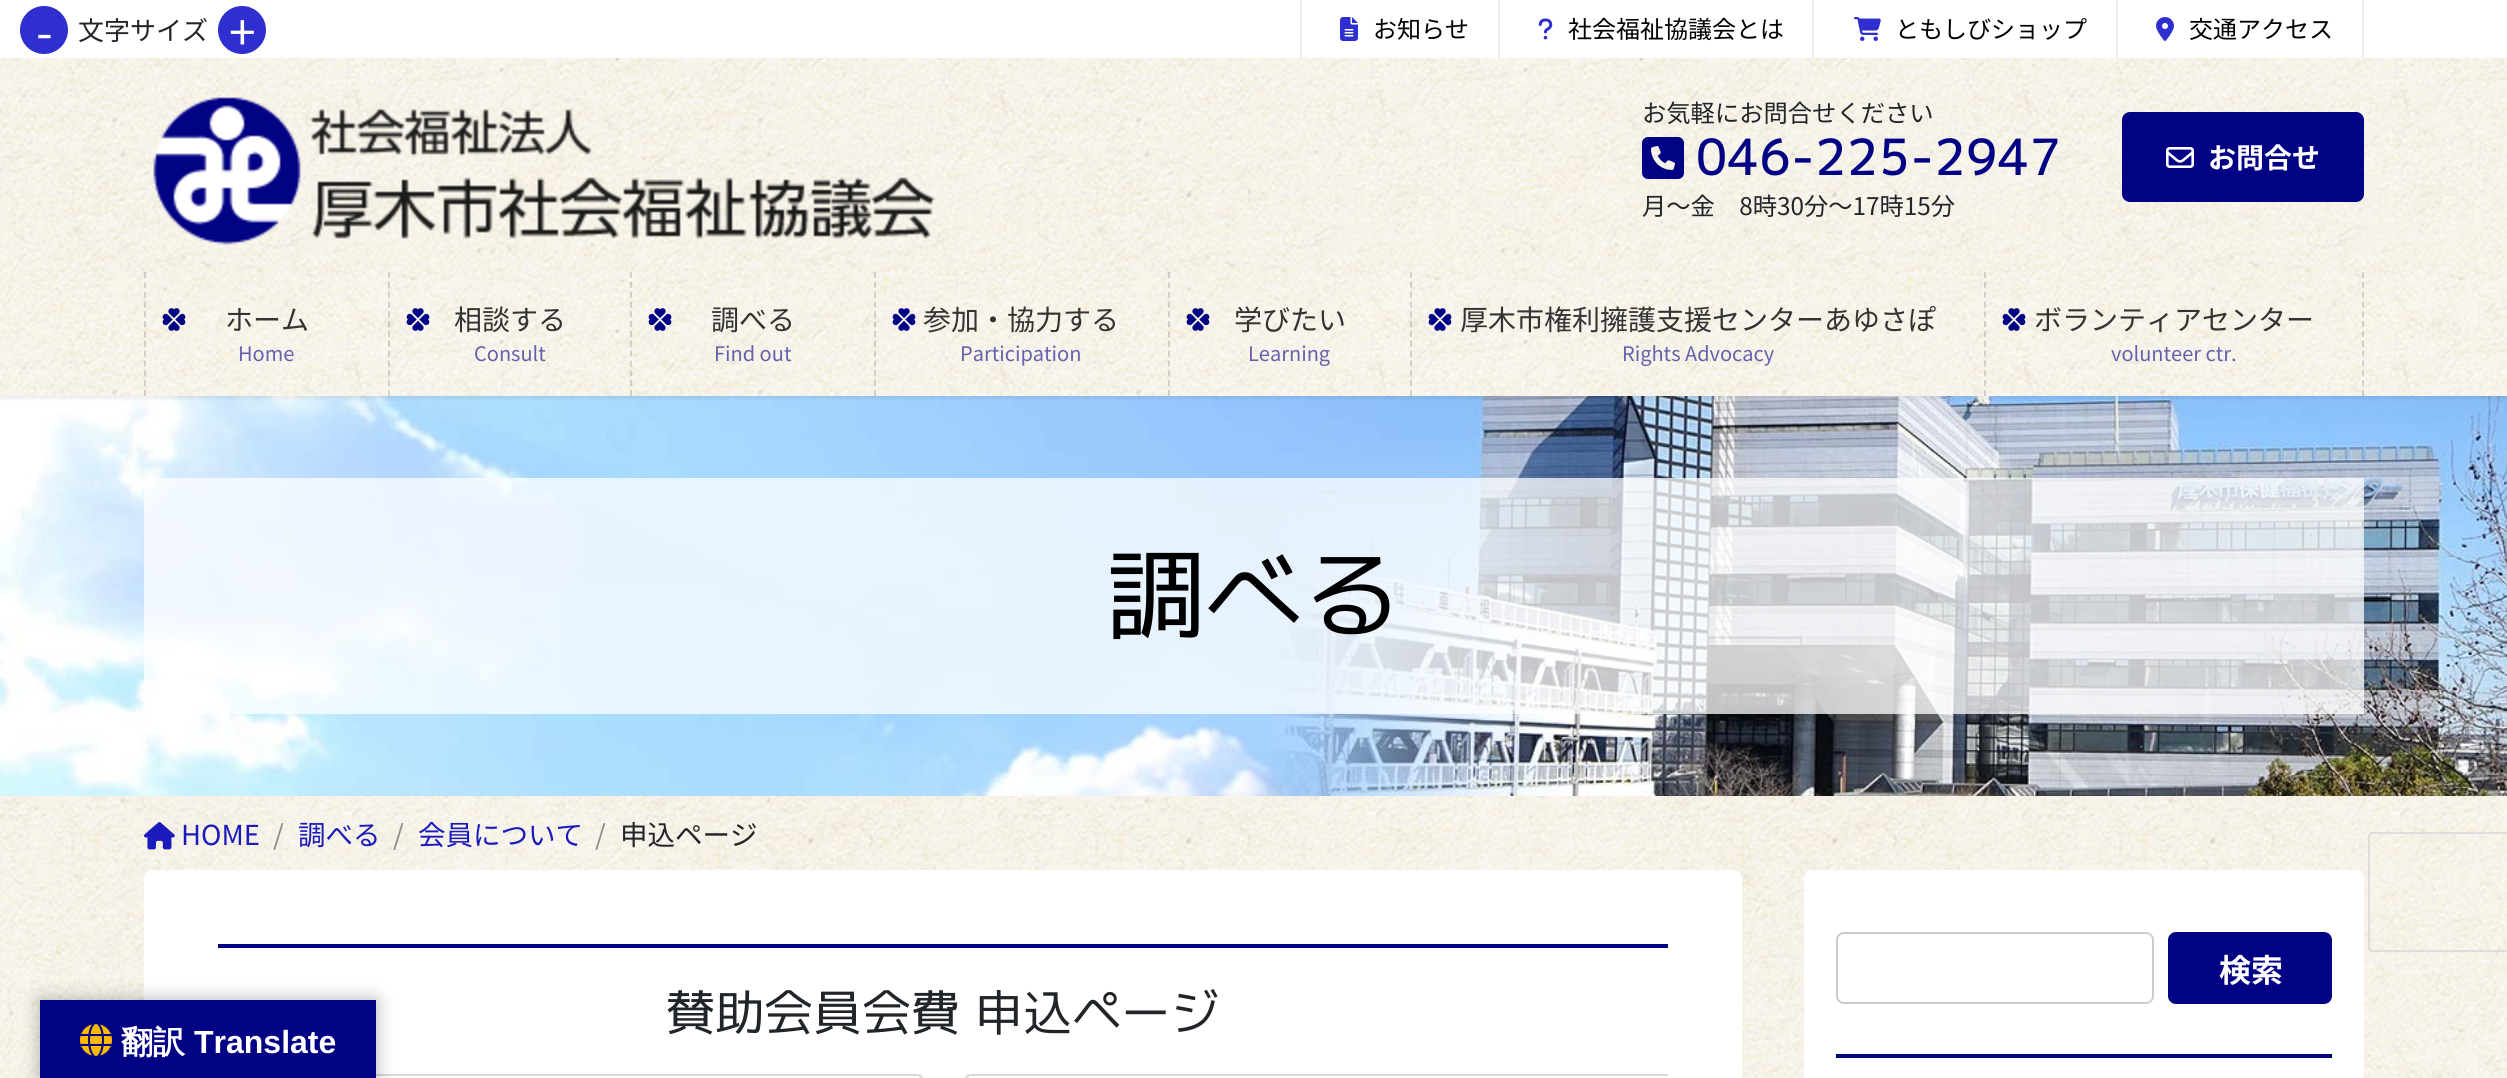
#include <cairo.h>
#include <math.h>
#include <stddef.h>

static cairo_t *c;
static void C(unsigned color){cairo_set_source_rgb(c, (color >> 16) / 255.0, (color >> 8 & 255) / 255.0, (color & 255) / 255.0);}
static void F(const char *family, double size, int italic, int bold){cairo_select_font_face(c, family, italic ? CAIRO_FONT_SLANT_ITALIC : CAIRO_FONT_SLANT_NORMAL,bold ? CAIRO_FONT_WEIGHT_BOLD : CAIRO_FONT_WEIGHT_NORMAL);cairo_set_font_size(c, size);}
static void T(double x, double y, const char *s){cairo_move_to(c, x, y);cairo_show_text(c, s);}
static void L(double x, double y, const char *s, double letter, double word){cairo_move_to(c, x, y);while (*s) {char ch[5] = {0};int n = 0;do ch[n++] = *s++; while ((*s & 0xC0) == 0x80);cairo_show_text(c, ch);cairo_rel_move_to(c, letter + word * (*ch == ' '), 0);}}
static void R(double x, double y, double w, double h){cairo_rectangle(c, x, y, w, h);cairo_fill(c);}
static void Q(double x, double y, double w, double h, double r){cairo_new_sub_path(c);cairo_arc(c, x + w - r, y + h - r, r, 0, M_PI / 2);cairo_arc(c, x + r, y + h - r, r, M_PI / 2, M_PI);cairo_arc(c, x + r, y + r, r, M_PI, 1.5 * M_PI);cairo_arc(c, x + w - r, y + r, r, 1.5 * M_PI, 2 * M_PI);cairo_close_path(c);}
static void S(double x, double y, double w, double h, double r, double blur, double alpha){cairo_push_group_with_content(c, CAIRO_CONTENT_ALPHA);cairo_set_operator(c, CAIRO_OPERATOR_SOURCE);for (int i = 15; i >= -15 && fmin(w, h) + blur * i / 3 > 0; i -= 2) {double e = blur * i / 6;cairo_set_source_rgba(c, 0, 0, 0, alpha * erfc((i - 1) / 8.5) / 2);Q(x - e, y - e, w + 2 * e, h + 2 * e, fmax(0, fmin(r + e + blur * .6, fmin(w, h) / 2 + e)));cairo_fill(c);}cairo_pattern_t *soft = cairo_pop_group(c);cairo_mask(c, soft);cairo_pattern_destroy(soft);}
static void I(const char *path, double x, double y, double w, double h){cairo_surface_t *image = cairo_image_surface_create_from_png(path);cairo_save(c);cairo_set_source_surface(c, image, x, y);cairo_rectangle(c, x, y, w, h);cairo_fill(c);cairo_restore(c);cairo_surface_destroy(image);}
int main(void) {
cairo_surface_t *surface = cairo_image_surface_create(CAIRO_FORMAT_RGB24, 2507, 1078);
c = cairo_create(surface);
cairo_font_options_t *options = cairo_font_options_create();
cairo_font_options_set_hint_metrics(options, CAIRO_HINT_METRICS_OFF);
cairo_font_options_set_hint_style(options, CAIRO_HINT_STYLE_NONE);
cairo_set_font_options(c, options);
cairo_set_miter_limit(c, 4);
C(0xffffff);
cairo_paint(c);
I("1.png",0,58,2507,1020);
I("16.png",0,396,2507,400);
cairo_save(c);
cairo_rectangle(c,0,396,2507,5);
cairo_clip(c);
C(0x000000);
S(0,2,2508,396,0,3,.1);
cairo_restore(c);
C(0x2f2fcf);
cairo_arc(c,44,30,24,0,2 * M_PI);
cairo_fill(c);
F("Noto Sans JP",48,0,0);
C(0xffffff);
T(36,50,"-");
F("Noto Sans JP",26,0,0);
C(0x212529);
T(78,40,"文字サイズ");
C(0x2f2fcf);
cairo_new_path(c);
cairo_arc(c,242,30,24,0,2 * M_PI);
cairo_fill(c);
F("Noto Sans JP",48,0,0);
C(0xffffff);
T(229,50,"+");
C(0xeeeeee);
R(1498,0,2,58);
R(1300,0,2,58);
I("2.png",1340,17,18,24);
F("Noto Sans JP",24,0,0);
C(0x000000);
T(1373,38,"お知らせ");
C(0xeeeeee);
R(1812,0,2,58);
I("3.png",1538,18,15,22);
C(0x000000);
T(1568,38,"社会福祉協議会とは");
C(0xeeeeee);
R(2116,0,2,58);
I("4.png",1854,17,27,24);
C(0x000000);
T(1895,38,"ともしびショップ");
C(0xeeeeee);
R(2362,0,2,58);
I("5.png",2156,17,18,24);
C(0x000000);
T(2189,38,"交通アクセス");
I("6.png",153,97,782,148);
F("Noto Sans JP",24.3,0,0);
C(0x212529);
T(1642,122,"お気軽にお問合せください");
I("7.png",1642,137,42,42);
F("M PLUS 1p",48,0,1);
C(0x020284);
L(1696,175,"046-225-2947",2,0);
F("Noto Sans JP",24.3,0,0);
C(0x212529);
T(1642,215,"月～金　8時30分～17時15分");
C(0x020284);
Q(2123,113,240,88,7);
cairo_fill_preserve(c);
cairo_stroke(c);
I("8.png",2166,147,28,21);
F("Noto Sans JP",28,0,1);
C(0xffffff);
T(2208,168,"お問合せ");
I("9.png",0,272,2507,124);
cairo_new_path(c);
cairo_move_to(c,145,272);
cairo_line_to(c,145,396);
cairo_set_source_rgba(c,0,0,0,0.15);
cairo_set_dash(c,(double[]){6,3.84},2,0);
cairo_stroke(c);
I("10.png",162,308,24,23);
F("Noto Sans JP",28,0,0);
C(0x333333);
T(225,330,"ホーム");
F("Noto Sans JP",20,0,0);
C(0x6462ad);
T(238,361,"Home");
cairo_new_path(c);
cairo_move_to(c,389,272);
cairo_line_to(c,389,396);
cairo_set_source_rgba(c,0,0,0,0.15);
cairo_stroke(c);
I("11.png",406,308,24,23);
F("Noto Sans JP",28,0,0);
C(0x333333);
T(454,330,"相談する");
F("Noto Sans JP",20,0,0);
C(0x6462ad);
T(474,361,"Consult");
cairo_new_path(c);
cairo_move_to(c,631,272);
cairo_line_to(c,631,396);
cairo_set_source_rgba(c,0,0,0,0.15);
cairo_stroke(c);
I("12.png",648,308,24,23);
F("Noto Sans JP",28,0,0);
C(0x333333);
T(711,330,"調べる");
F("Noto Sans JP",20,0,0);
C(0x6462ad);
T(714,361,"Find out");
cairo_new_path(c);
cairo_move_to(c,875,272);
cairo_line_to(c,875,396);
cairo_set_source_rgba(c,0,0,0,0.15);
cairo_stroke(c);
I("13.png",892,308,24,23);
F("Noto Sans JP",28,0,0);
C(0x333333);
T(923,330,"参加・協力する");
F("Noto Sans JP",20,0,0);
C(0x6462ad);
T(960,361,"Participation");
cairo_new_path(c);
cairo_move_to(c,1169,272);
cairo_line_to(c,1169,396);
cairo_set_source_rgba(c,0,0,0,0.15);
cairo_stroke(c);
I("10.png",1186,308,24,23);
F("Noto Sans JP",28,0,0);
C(0x333333);
T(1234,330,"学びたい");
F("Noto Sans JP",20,0,0);
C(0x6462ad);
T(1248,361,"Learning");
cairo_new_path(c);
cairo_move_to(c,1411,272);
cairo_line_to(c,1411,396);
cairo_set_source_rgba(c,0,0,0,0.15);
cairo_stroke(c);
I("14.png",1428,308,24,23);
F("Noto Sans JP",28,0,0);
C(0x333333);
T(1460,330,"厚木市権利擁護支援センターあゆさぽ");
F("Noto Sans JP",20,0,0);
C(0x6462ad);
T(1622,361,"Rights Advocacy");
cairo_new_path(c);
cairo_move_to(c,2363,272);
cairo_line_to(c,2363,396);
cairo_set_source_rgba(c,0,0,0,0.15);
cairo_stroke(c);
cairo_new_path(c);
cairo_move_to(c,1985,272);
cairo_line_to(c,1985,396);
cairo_stroke(c);
I("15.png",2002,308,24,23);
F("Noto Sans JP",28,0,0);
C(0x333333);
T(2034,330,"ボランティアセンター");
F("Noto Sans JP",20,0,0);
C(0x6462ad);
T(2111,361,"volunteer ctr.");
cairo_set_source_rgba(c,1,1,1,0.75);
R(144,478,2220,236);
F("M PLUS 1p",98.5,0,0);
C(0x000000);
T(1106,630,"調べる");
I("17.png",144,822,31,28);
F("Noto Sans JP",27.5,0,0);
C(0x1b1bbc);
T(181,845,"HOME");
C(0x8c8c89);
T(273,845,"/");
C(0x1b1bbc);
T(298,845,"調べる");
C(0x8c8c89);
T(393,845,"/");
C(0x1b1bbc);
T(418,845,"会員について");
C(0x8c8c89);
T(595,845,"/");
C(0x212529);
T(620,845,"申込ページ");
Q(2369,833,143,118,3);
C(0xdddddd);
cairo_set_dash(c,NULL,0,0);
cairo_stroke(c);
C(0xffffff);
Q(1804,870,560,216,8);
cairo_fill(c);
Q(1837,933,316,70,7);
C(0xcccccc);
cairo_stroke(c);
C(0x020284);
Q(2168,932,164,72,8);
cairo_fill(c);
F("Noto Sans JP",32,0,1);
C(0xffffff);
T(2219,982,"検索");
C(0x020284);
R(1836,1054,496,4);
C(0xffffff);
Q(144,870,1598,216,8);
cairo_fill(c);
C(0x020284);
R(218,944,1450,4);
C(0xd9d9d9);
R(376,1074,1292,2);
F("M PLUS 1p",49,0,0);
C(0x212529);
T(666,1030,"賛助会員会費 申込ページ");
C(0xdddddd);
cairo_new_path(c);
cairo_move_to(c,916,1074);
cairo_line_to(c,972,1074);
cairo_line_to(c,944,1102);
cairo_close_path(c);
cairo_fill(c);
C(0xffffff);
cairo_new_path(c);
cairo_move_to(c,920,1074);
cairo_line_to(c,968,1074);
cairo_line_to(c,944,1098);
cairo_close_path(c);
cairo_fill(c);
C(0x000000);
S(40,1000,336,78,0,9,.3);
C(0x020284);
R(40,1000,336,78);
I("18.png",80,1024,32,32);
F("WenQuanYi Zen Hei",32,0,1);
C(0xffffff);
T(121,1053,"翻訳");
F("Liberation Sans",32,0,1);
T(194,1053,"Translate");
cairo_surface_write_to_png(surface, "o.png");
cairo_font_options_destroy(options);
cairo_destroy(c);
cairo_surface_destroy(surface);
return 0;
}
